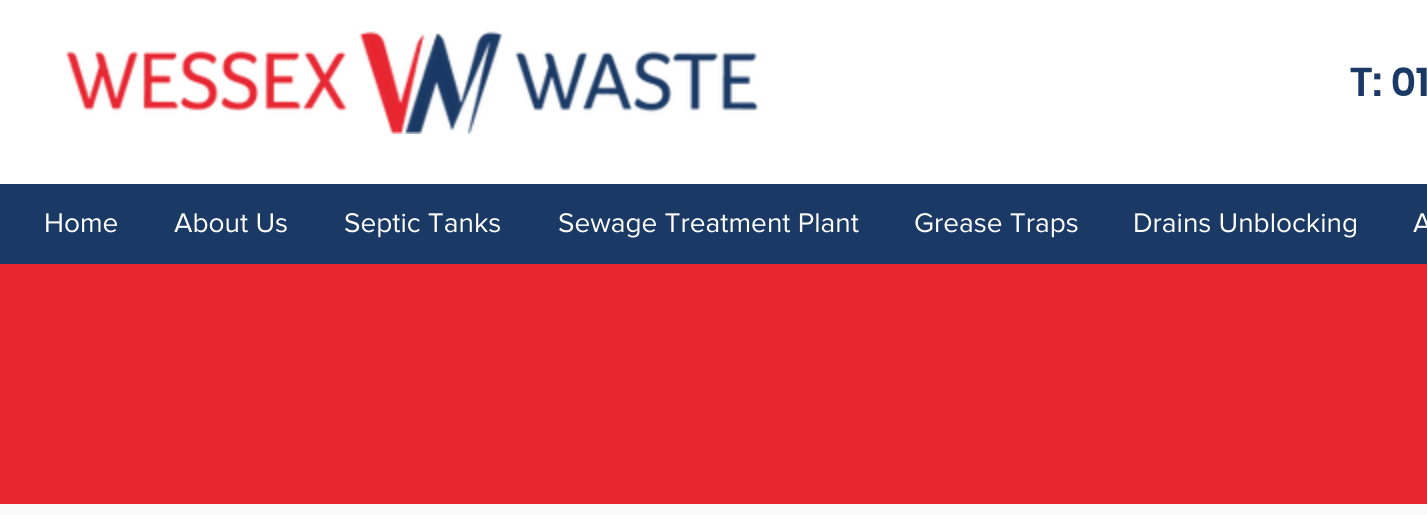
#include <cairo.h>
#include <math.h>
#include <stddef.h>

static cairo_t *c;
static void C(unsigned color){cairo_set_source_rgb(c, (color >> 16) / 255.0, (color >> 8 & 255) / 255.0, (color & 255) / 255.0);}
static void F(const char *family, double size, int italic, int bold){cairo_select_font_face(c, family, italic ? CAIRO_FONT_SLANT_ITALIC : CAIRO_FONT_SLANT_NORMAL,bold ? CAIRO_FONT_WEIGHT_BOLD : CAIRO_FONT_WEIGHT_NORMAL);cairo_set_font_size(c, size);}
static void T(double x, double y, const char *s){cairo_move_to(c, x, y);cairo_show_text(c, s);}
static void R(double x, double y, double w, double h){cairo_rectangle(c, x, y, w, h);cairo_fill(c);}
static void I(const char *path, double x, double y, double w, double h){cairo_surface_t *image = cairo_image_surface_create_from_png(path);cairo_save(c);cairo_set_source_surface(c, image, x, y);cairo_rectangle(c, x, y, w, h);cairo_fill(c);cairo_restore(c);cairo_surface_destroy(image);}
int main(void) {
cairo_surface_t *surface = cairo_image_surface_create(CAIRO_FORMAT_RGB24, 1427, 515);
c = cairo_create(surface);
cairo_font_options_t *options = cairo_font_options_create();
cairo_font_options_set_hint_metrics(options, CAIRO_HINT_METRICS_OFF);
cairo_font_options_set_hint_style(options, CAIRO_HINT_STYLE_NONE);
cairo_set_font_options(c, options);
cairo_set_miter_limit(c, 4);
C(0xffffff);
cairo_paint(c);
I("1.png",65,31,694,103);
F("Poppins SemiBold",40,0,0);
C(0x1a3964);
T(1350,96,"T: 01");
R(0,184,1427,80);
F("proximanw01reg",28,0,0);
C(0xffffff);
T(44,232,"Home");
T(174,232,"About Us");
T(344,232,"Septic Tanks");
T(558,232,"Sewage Treatment Plant");
T(914,232,"Grease Traps");
T(1133,232,"Drains Unblocking");
T(1413,232,"A");
C(0xe72630);
R(0,264,1427,240);
C(0xfafafa);
R(0,504,1427,11);
cairo_surface_write_to_png(surface, "o.png");
cairo_font_options_destroy(options);
cairo_destroy(c);
cairo_surface_destroy(surface);
return 0;
}
